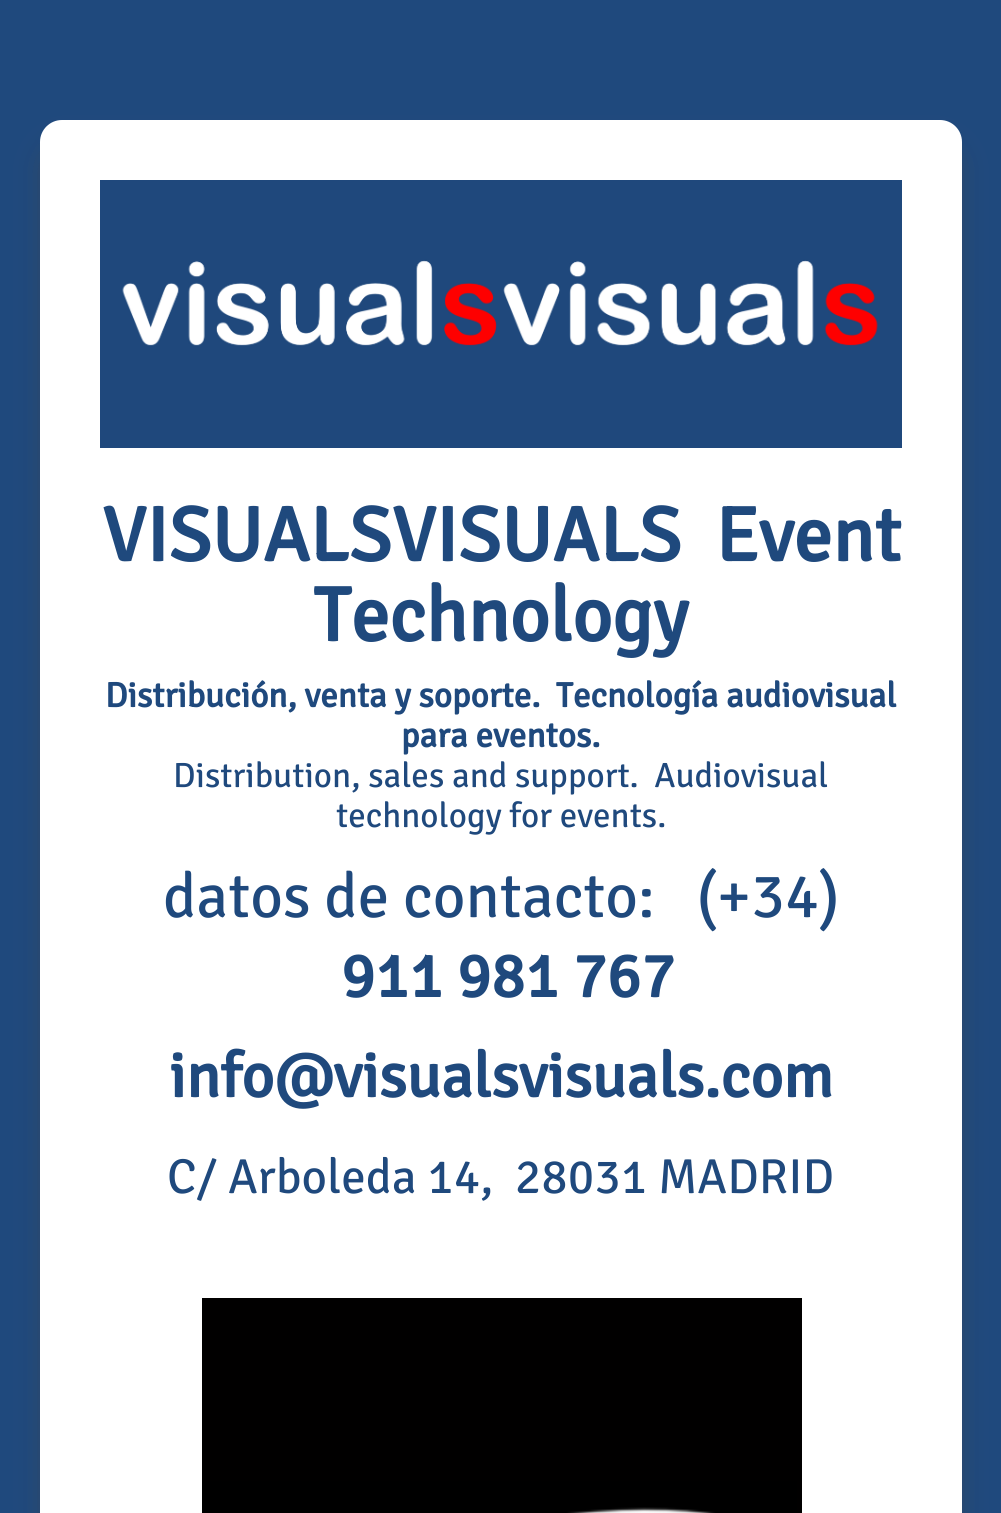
#include <cairo.h>
#include <math.h>
#include <stddef.h>

static cairo_t *c;
static void C(unsigned color){cairo_set_source_rgb(c, (color >> 16) / 255.0, (color >> 8 & 255) / 255.0, (color & 255) / 255.0);}
static void F(const char *family, double size, int italic, int bold){cairo_select_font_face(c, family, italic ? CAIRO_FONT_SLANT_ITALIC : CAIRO_FONT_SLANT_NORMAL,bold ? CAIRO_FONT_WEIGHT_BOLD : CAIRO_FONT_WEIGHT_NORMAL);cairo_set_font_size(c, size);}
static void T(double x, double y, const char *s){cairo_move_to(c, x, y);cairo_show_text(c, s);}
static void Q(double x, double y, double w, double h, double r){cairo_new_sub_path(c);cairo_arc(c, x + w - r, y + h - r, r, 0, M_PI / 2);cairo_arc(c, x + r, y + h - r, r, M_PI / 2, M_PI);cairo_arc(c, x + r, y + r, r, M_PI, 1.5 * M_PI);cairo_arc(c, x + w - r, y + r, r, 1.5 * M_PI, 2 * M_PI);cairo_close_path(c);}
static void S(double x, double y, double w, double h, double r, double blur, double alpha){cairo_push_group_with_content(c, CAIRO_CONTENT_ALPHA);cairo_set_operator(c, CAIRO_OPERATOR_SOURCE);for (int i = 15; i >= -15 && fmin(w, h) + blur * i / 3 > 0; i -= 2) {double e = blur * i / 6;cairo_set_source_rgba(c, 0, 0, 0, alpha * erfc((i - 1) / 8.5) / 2);Q(x - e, y - e, w + 2 * e, h + 2 * e, fmax(0, fmin(r + e + blur * .6, fmin(w, h) / 2 + e)));cairo_fill(c);}cairo_pattern_t *soft = cairo_pop_group(c);cairo_mask(c, soft);cairo_pattern_destroy(soft);}
static void I(const char *path, double x, double y, double w, double h){cairo_surface_t *image = cairo_image_surface_create_from_png(path);cairo_save(c);cairo_set_source_surface(c, image, x, y);cairo_rectangle(c, x, y, w, h);cairo_fill(c);cairo_restore(c);cairo_surface_destroy(image);}
int main(void) {
cairo_surface_t *surface = cairo_image_surface_create(CAIRO_FORMAT_RGB24, 1001, 1513);
c = cairo_create(surface);
cairo_font_options_t *options = cairo_font_options_create();
cairo_font_options_set_hint_metrics(options, CAIRO_HINT_METRICS_OFF);
cairo_font_options_set_hint_style(options, CAIRO_HINT_STYLE_NONE);
cairo_set_font_options(c, options);
cairo_set_miter_limit(c, 4);
C(0x1f497d);
cairo_paint(c);
C(0x454545);
S(50,152,902,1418,12,15,.8);
C(0xffffff);
Q(40,120,922,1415,22);
cairo_fill(c);
I("1.png",100,180,802,268);
F("Signika Negative",77,0,1);
C(0x1f497d);
T(102,561,"VISUALSVISUALS  Event");
T(313,641,"Technology");
F("Signika Negative",35,0,1);
T(105,707,"Distribución, venta y soporte.  Tecnología audiovisual");
T(401,747,"para eventos.");
F("Signika Negative Light",35,0,0);
T(173,787,"Distribution, sales and support.  Audiovisual");
T(336,827,"technology for events.");
F("Signika Negative Light",63,0,0);
T(163,917,"datos de contacto:   (+34)");
F("Signika Negative",63,0,1);
T(341,997,"911 981 767");
T(169,1097,"info@visualsvisuals.com");
F("Signika Negative Light",49,0,0);
T(167,1193,"C/ Arboleda 14,  28031 MADRID");
I("2.png",202,1298,600,215);
cairo_surface_write_to_png(surface, "o.png");
cairo_font_options_destroy(options);
cairo_destroy(c);
cairo_surface_destroy(surface);
return 0;
}
